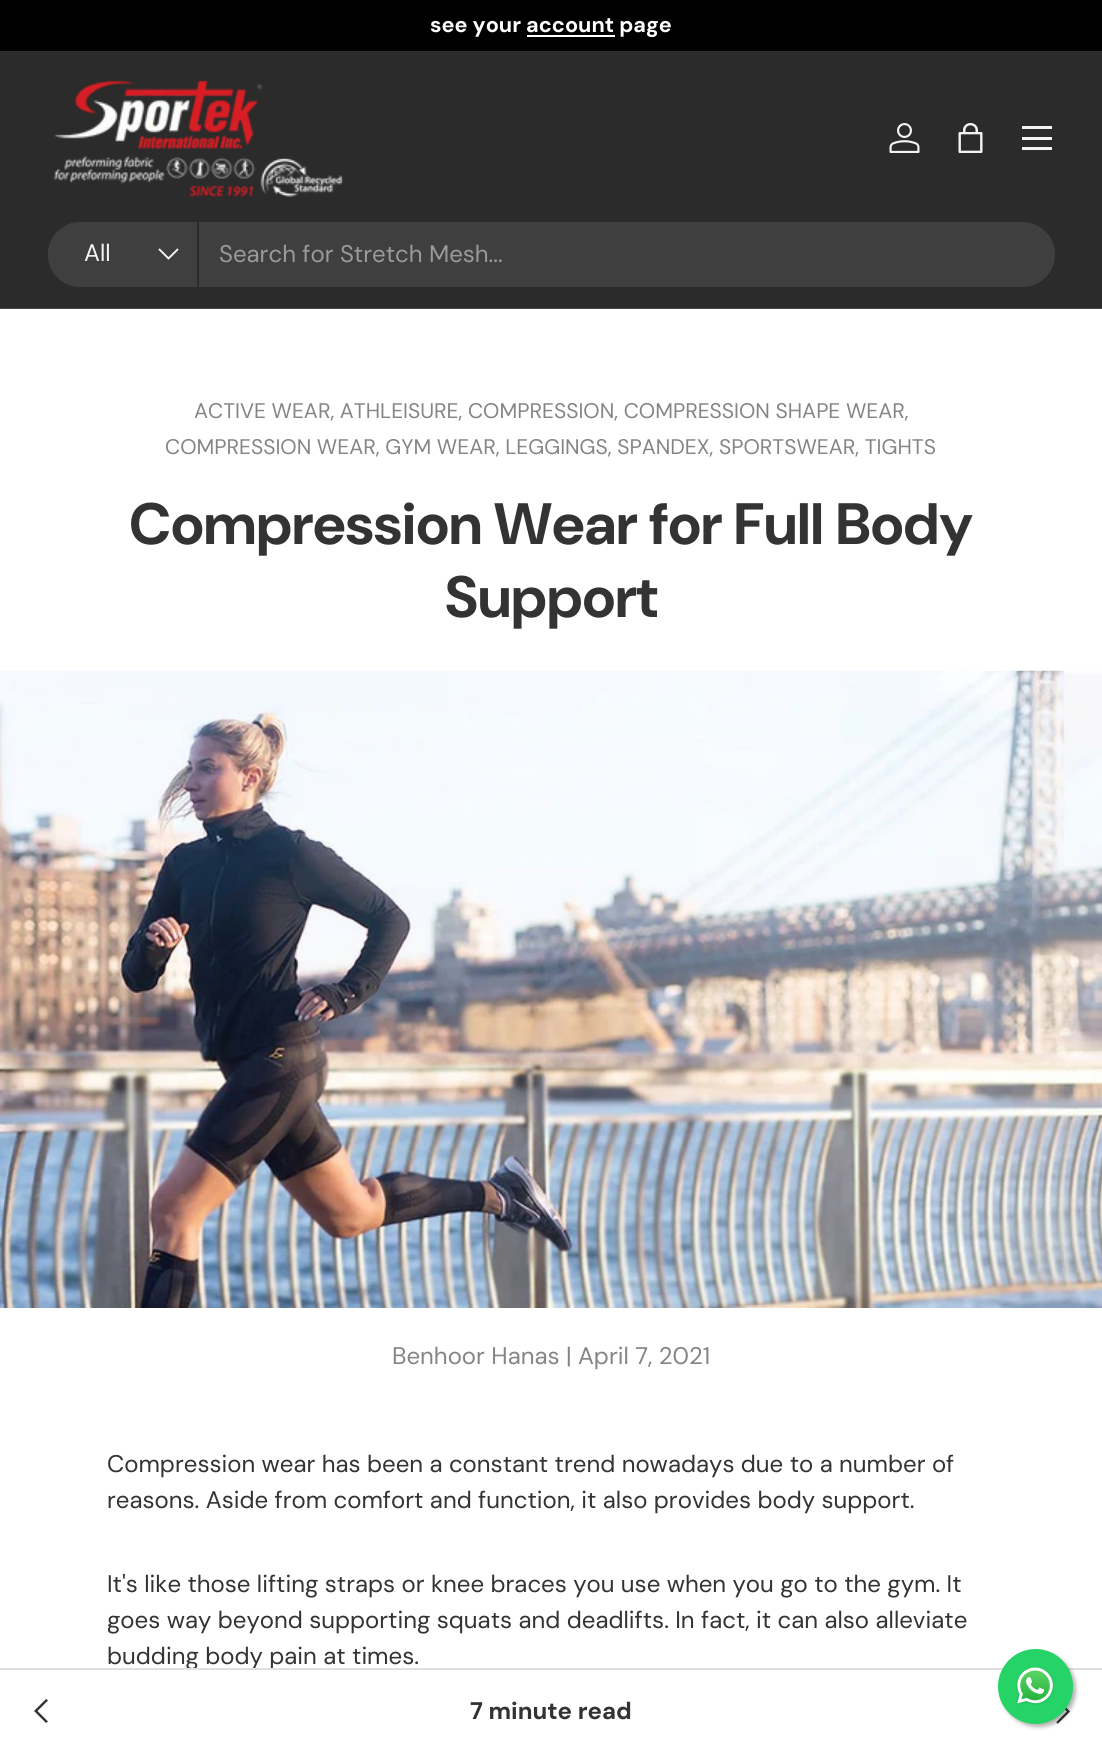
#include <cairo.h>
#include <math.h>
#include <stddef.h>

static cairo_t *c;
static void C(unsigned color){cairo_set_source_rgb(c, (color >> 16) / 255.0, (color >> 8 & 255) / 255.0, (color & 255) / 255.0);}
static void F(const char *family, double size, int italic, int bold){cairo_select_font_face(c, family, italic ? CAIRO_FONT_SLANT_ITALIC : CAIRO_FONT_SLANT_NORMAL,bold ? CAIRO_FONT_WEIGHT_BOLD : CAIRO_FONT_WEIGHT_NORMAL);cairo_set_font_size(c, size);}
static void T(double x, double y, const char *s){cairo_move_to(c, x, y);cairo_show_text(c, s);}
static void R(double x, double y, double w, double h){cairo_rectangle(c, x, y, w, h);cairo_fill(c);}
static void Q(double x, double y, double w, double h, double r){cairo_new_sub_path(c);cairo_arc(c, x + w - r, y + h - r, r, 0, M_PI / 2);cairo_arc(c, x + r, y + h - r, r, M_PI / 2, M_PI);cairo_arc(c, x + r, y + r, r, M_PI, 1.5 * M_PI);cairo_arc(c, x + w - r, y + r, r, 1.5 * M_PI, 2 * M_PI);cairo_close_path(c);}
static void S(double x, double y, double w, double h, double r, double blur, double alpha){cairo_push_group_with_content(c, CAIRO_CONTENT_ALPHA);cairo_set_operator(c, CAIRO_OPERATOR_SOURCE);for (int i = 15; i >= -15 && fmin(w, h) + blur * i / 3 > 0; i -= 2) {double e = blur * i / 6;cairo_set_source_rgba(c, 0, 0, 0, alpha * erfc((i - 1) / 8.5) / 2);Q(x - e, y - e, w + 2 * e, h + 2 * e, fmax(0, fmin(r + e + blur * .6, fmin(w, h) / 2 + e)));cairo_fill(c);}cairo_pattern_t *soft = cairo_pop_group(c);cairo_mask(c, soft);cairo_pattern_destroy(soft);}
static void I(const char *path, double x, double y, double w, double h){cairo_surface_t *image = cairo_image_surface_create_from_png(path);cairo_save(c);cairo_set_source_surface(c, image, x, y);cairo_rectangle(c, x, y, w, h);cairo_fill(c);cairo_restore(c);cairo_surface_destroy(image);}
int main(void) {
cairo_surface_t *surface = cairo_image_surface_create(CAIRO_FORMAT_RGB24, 1102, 1753);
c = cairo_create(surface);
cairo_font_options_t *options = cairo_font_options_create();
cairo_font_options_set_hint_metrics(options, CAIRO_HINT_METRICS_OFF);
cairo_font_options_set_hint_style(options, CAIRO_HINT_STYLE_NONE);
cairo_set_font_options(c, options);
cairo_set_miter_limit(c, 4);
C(0xffffff);
cairo_paint(c);
C(0x000000);
R(0,0,1102,51);
F("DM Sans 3",21.6,0,1);
C(0xffffff);
T(430,32,"see your account page");
R(527,35,88,2);
C(0x2a2b2a);
R(0,51,1102,257);
C(0x484948);
R(0,308,1102,1);
I("1.png",53,80,290,117);
I("2.png",889,123,31,30);
I("3.png",958,123,25,30);
C(0xf4f4f4);
R(1022,126,30,3);
R(1022,147,30,3);
R(1022,137,30,3);
C(0x3e3f3e);
Q(48,222,1007,65,32.5);
cairo_fill(c);
cairo_new_path(c);
cairo_move_to(c,80.5,222);
cairo_line_to(c,198,222);
cairo_line_to(c,198,287);
cairo_line_to(c,80.5,287);
cairo_curve_to(c,62.5,287,48,272.5,48,254.5);
cairo_curve_to(c,48,236.5,62.5,222,80.5,222);
cairo_close_path(c);
cairo_fill(c);
C(0x2a2b2a);
R(197,222,2,65);
F("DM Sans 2",24,0,0);
C(0xf4f4f4);
T(84,261,"All");
cairo_new_path(c);
cairo_move_to(c,178,249);
cairo_line_to(c,168.5,258.5);
cairo_line_to(c,159,249);
cairo_set_line_width(c,1.9);
cairo_stroke(c);
C(0x999a99);
T(219,262,"Search for Stretch Mesh...");
F("DM Sans",21.1,0,0);
C(0x858585);
T(194,418,"ACTIVE WEAR, ATHLEISURE, COMPRESSION, COMPRESSION SHAPE WEAR,");
T(165,454,"COMPRESSION WEAR, GYM WEAR, LEGGINGS, SPANDEX, SPORTSWEAR, TIGHTS");
F("DM Sans",58.25,0,1);
C(0x333333);
T(129,544,"Compression Wear for Full Body");
T(445,617,"Support");
I("4.png",0,670,1102,638);
F("DM Sans 2",24,0,0);
C(0x858585);
T(392,1364,"Benhoor Hanas | April 7, 2021");
C(0x333333);
T(107,1472,"Compression wear has been a constant trend nowadays due to a number of");
T(107,1508,"reasons. Aside from comfort and function, it also provides body support.");
T(107,1592,"It's like those lifting straps or knee braces you use when you go to the gym. It");
T(107,1628,"goes way beyond supporting squats and deadlifts. In fact, it can also alleviate");
T(107,1664,"budding body pain at times.");
C(0xe0e0e0);
R(0,1668,1102,2);
C(0x333333);
cairo_new_path(c);
cairo_move_to(c,34,1711);
cairo_line_to(c,46,1699);
cairo_line_to(c,48,1700.5);
cairo_line_to(c,37.5,1711);
cairo_line_to(c,48,1721.5);
cairo_line_to(c,46,1723);
cairo_close_path(c);
cairo_fill(c);
F("DM Sans 2",24,0,1);
T(470,1719,"7 minute read");
cairo_new_path(c);
cairo_move_to(c,1057,1700);
cairo_line_to(c,1068.5,1711.5);
cairo_line_to(c,1057,1723);
cairo_set_line_width(c,2.2);
cairo_stroke(c);
C(0x000000);
S(1001,1652,75,75,37.5,2,.3);
C(0x25d366);
cairo_arc(c,1035.5,1686.5,37.5,0,2 * M_PI);
cairo_fill(c);
I("5.png",1016,1666,38,39);
cairo_surface_write_to_png(surface, "o.png");
cairo_font_options_destroy(options);
cairo_destroy(c);
cairo_surface_destroy(surface);
return 0;
}
